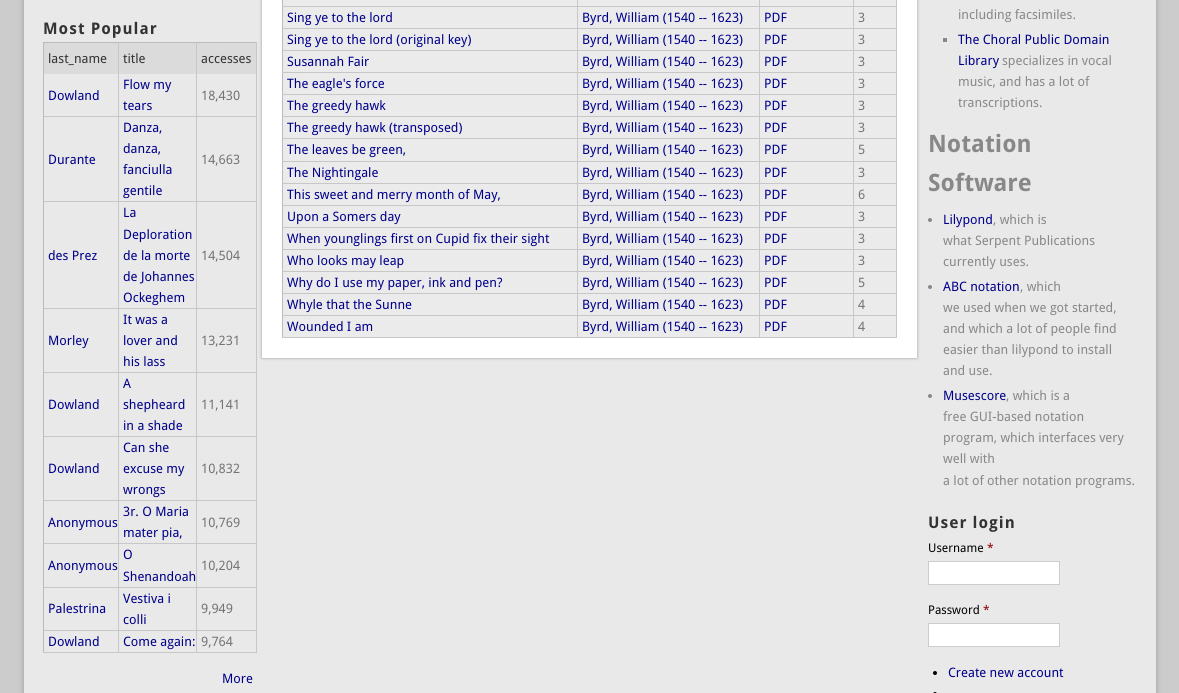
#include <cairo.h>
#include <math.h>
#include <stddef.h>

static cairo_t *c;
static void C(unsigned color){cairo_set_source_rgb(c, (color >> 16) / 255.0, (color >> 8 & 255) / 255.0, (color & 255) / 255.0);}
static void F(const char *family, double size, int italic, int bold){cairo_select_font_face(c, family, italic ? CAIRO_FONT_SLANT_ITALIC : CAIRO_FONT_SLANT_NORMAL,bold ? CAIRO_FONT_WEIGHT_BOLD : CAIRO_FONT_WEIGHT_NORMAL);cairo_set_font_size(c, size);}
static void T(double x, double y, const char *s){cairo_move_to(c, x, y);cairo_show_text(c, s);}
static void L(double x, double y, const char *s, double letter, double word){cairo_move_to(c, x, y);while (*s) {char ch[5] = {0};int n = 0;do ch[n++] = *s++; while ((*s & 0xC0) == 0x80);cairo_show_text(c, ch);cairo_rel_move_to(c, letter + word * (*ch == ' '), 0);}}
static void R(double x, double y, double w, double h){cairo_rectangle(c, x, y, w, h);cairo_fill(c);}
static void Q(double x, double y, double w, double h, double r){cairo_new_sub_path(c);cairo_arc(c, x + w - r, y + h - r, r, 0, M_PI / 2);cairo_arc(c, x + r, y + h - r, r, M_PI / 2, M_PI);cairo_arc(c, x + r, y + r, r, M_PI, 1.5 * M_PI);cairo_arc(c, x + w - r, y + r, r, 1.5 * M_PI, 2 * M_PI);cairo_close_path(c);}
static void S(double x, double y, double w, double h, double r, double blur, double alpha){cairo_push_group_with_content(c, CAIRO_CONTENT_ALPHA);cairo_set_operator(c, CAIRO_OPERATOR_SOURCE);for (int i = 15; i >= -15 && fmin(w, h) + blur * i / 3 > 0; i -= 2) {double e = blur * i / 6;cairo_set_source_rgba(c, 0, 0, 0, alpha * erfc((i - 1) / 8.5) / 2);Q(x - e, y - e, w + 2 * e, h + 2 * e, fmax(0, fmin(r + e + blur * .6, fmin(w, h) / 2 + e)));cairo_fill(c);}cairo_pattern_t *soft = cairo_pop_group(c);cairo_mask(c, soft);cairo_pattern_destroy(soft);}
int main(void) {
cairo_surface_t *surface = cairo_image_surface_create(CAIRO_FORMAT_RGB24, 1179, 693);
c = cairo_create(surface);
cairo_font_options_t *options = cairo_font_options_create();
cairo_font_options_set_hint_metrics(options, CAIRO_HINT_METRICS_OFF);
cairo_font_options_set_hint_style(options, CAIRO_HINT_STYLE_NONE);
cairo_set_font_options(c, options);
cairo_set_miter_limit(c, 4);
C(0xcccccc);
cairo_paint(c);
C(0x999999);
S(24,-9,1132,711,0,3,1);
C(0xe9e9e9);
R(24,0,1132,693);
F("Droid Sans",16,0,1);
C(0x333333);
L(43,34,"Most Popular",1,0);
C(0x999999);
S(262,-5,655,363,0,1.5,1);
C(0xbbbbbb);
R(43,42,214,1);
R(43,42,1,611);
C(0xdbdbdb);
R(44,43,74,31);
F("Droid Sans",13,0,0);
C(0x333333);
T(48,63,"last_name");
C(0xdbdbdb);
R(119,43,77,31);
C(0x333333);
T(123,63,"title");
C(0xdbdbdb);
R(197,43,59,31);
C(0x333333);
T(201,63,"accesses");
C(0xc8c7c7);
R(256,42,1,611);
R(196,652,61,1);
R(196,630,1,23);
R(196,630,61,1);
R(196,587,1,44);
R(196,587,61,1);
R(196,543,1,45);
R(196,543,61,1);
R(196,500,1,44);
R(196,500,61,1);
R(196,436,1,65);
R(196,436,61,1);
R(196,372,1,65);
R(196,372,61,1);
R(196,308,1,65);
R(196,308,61,1);
R(196,201,1,108);
R(196,201,61,1);
R(196,116,1,86);
R(196,116,61,1);
R(196,42,1,75);
R(118,652,79,1);
R(118,630,1,23);
R(118,630,79,1);
R(118,587,1,44);
R(118,587,79,1);
R(118,543,1,45);
R(118,543,79,1);
R(118,500,1,44);
R(118,500,79,1);
R(118,436,1,65);
R(118,436,79,1);
R(118,372,1,65);
R(118,372,79,1);
R(118,308,1,65);
R(118,308,79,1);
R(118,201,1,108);
R(118,201,79,1);
R(118,116,1,86);
R(118,116,79,1);
R(118,42,1,75);
R(43,116,76,1);
C(0x00008b);
T(48,100,"Dowland");
T(123,89,"Flow my");
T(123,110,"tears");
C(0x747474);
T(201,100,"18,430");
C(0xc8c7c7);
R(43,201,76,1);
C(0x00008b);
T(48,164,"Durante");
T(123,132,"Danza,");
T(123,153,"danza,");
T(123,174,"fanciulla");
T(123,195,"gentile");
C(0x747474);
T(201,164,"14,663");
C(0xc8c7c7);
R(43,308,76,1);
C(0x00008b);
T(48,260,"des Prez");
T(123,217,"La");
T(123,239,"Deploration");
T(123,260,"de la morte");
T(123,281,"de Johannes");
T(123,302,"Ockeghem");
C(0x747474);
T(201,260,"14,504");
C(0xc8c7c7);
R(43,372,76,1);
C(0x00008b);
T(48,345,"Morley");
T(123,324,"It was a");
T(123,345,"lover and");
T(123,366,"his lass");
C(0x747474);
T(201,345,"13,231");
C(0xc8c7c7);
R(43,436,76,1);
C(0x00008b);
T(48,409,"Dowland");
T(123,388,"A");
T(123,409,"shepheard");
T(123,430,"in a shade");
C(0x747474);
T(201,409,"11,141");
C(0xc8c7c7);
R(43,500,76,1);
C(0x00008b);
T(48,473,"Dowland");
T(123,452,"Can she");
T(123,473,"excuse my");
T(123,494,"wrongs");
C(0x747474);
T(201,473,"10,832");
C(0xc8c7c7);
R(43,543,76,1);
C(0x00008b);
T(48,527,"Anonymous");
T(123,516,"3r. O Maria");
T(123,537,"mater pia,");
C(0x747474);
T(201,527,"10,769");
C(0xc8c7c7);
R(43,587,76,1);
C(0x00008b);
T(48,570,"Anonymous");
T(123,559,"O");
T(123,581,"Shenandoah");
C(0x747474);
T(201,570,"10,204");
C(0xc8c7c7);
R(43,630,76,1);
C(0x00008b);
T(48,613,"Palestrina");
T(123,603,"Vestiva i");
T(123,624,"colli");
C(0x747474);
T(201,613,"9,949");
C(0xc8c7c7);
R(43,652,76,1);
C(0x00008b);
T(48,646,"Dowland");
T(123,646,"Come again:");
C(0x747474);
T(201,646,"9,764");
C(0x00008b);
T(222,683,"More");
C(0xffffff);
R(262,0,655,358);
C(0xebebeb);
R(282,0,615,6);
C(0xbbbbbb);
R(282,0,1,338);
C(0xc8c7c7);
R(896,0,1,338);
R(853,337,44,1);
R(853,315,1,23);
R(853,315,44,1);
R(853,293,1,23);
R(853,293,44,1);
R(853,271,1,23);
R(853,271,44,1);
R(853,249,1,23);
R(853,249,44,1);
R(853,227,1,23);
R(853,227,44,1);
R(853,205,1,23);
R(853,205,44,1);
R(853,183,1,23);
R(853,183,44,1);
R(853,161,1,23);
R(853,161,44,1);
R(853,138,1,24);
R(853,138,44,1);
R(853,116,1,23);
R(853,116,44,1);
R(853,94,1,23);
R(853,94,44,1);
R(853,72,1,23);
R(853,72,44,1);
R(853,50,1,23);
R(853,50,44,1);
R(853,28,1,23);
R(853,28,44,1);
R(853,6,1,23);
R(853,6,44,1);
R(853,0,1,7);
R(759,337,95,1);
R(759,315,1,23);
R(759,315,95,1);
R(759,293,1,23);
R(759,293,95,1);
R(759,271,1,23);
R(759,271,95,1);
R(759,249,1,23);
R(759,249,95,1);
R(759,227,1,23);
R(759,227,95,1);
R(759,205,1,23);
R(759,205,95,1);
R(759,183,1,23);
R(759,183,95,1);
R(759,161,1,23);
R(759,161,95,1);
R(759,138,1,24);
R(759,138,95,1);
R(759,116,1,23);
R(759,116,95,1);
R(759,94,1,23);
R(759,94,95,1);
R(759,72,1,23);
R(759,72,95,1);
R(759,50,1,23);
R(759,50,95,1);
R(759,28,1,23);
R(759,28,95,1);
R(759,6,1,23);
R(759,6,95,1);
R(759,0,1,7);
R(577,337,183,1);
R(577,315,1,23);
R(577,315,183,1);
R(577,293,1,23);
R(577,293,183,1);
R(577,271,1,23);
R(577,271,183,1);
R(577,249,1,23);
R(577,249,183,1);
R(577,227,1,23);
R(577,227,183,1);
R(577,205,1,23);
R(577,205,183,1);
R(577,183,1,23);
R(577,183,183,1);
R(577,161,1,23);
R(577,161,183,1);
R(577,138,1,24);
R(577,138,183,1);
R(577,116,1,23);
R(577,116,183,1);
R(577,94,1,23);
R(577,94,183,1);
R(577,72,1,23);
R(577,72,183,1);
R(577,50,1,23);
R(577,50,183,1);
R(577,28,1,23);
R(577,28,183,1);
R(577,6,1,23);
R(577,6,183,1);
R(577,0,1,7);
R(282,6,296,1);
C(0xebebeb);
R(283,7,294,21);
C(0xc8c7c7);
R(282,28,296,1);
C(0x00008b);
T(287,22,"Sing ye to the lord");
C(0xebebeb);
R(578,7,181,21);
C(0x00008b);
T(582,22,"Byrd, William (1540 -- 1623)");
C(0xebebeb);
R(760,7,93,21);
C(0x00008b);
T(764,22,"PDF");
C(0xebebeb);
R(854,7,42,21);
C(0x747474);
T(858,22,"3");
C(0xebebeb);
R(283,29,294,21);
C(0xc8c7c7);
R(282,50,296,1);
C(0x00008b);
T(287,44,"Sing ye to the lord (original key)");
C(0xebebeb);
R(578,29,181,21);
C(0x00008b);
T(582,44,"Byrd, William (1540 -- 1623)");
C(0xebebeb);
R(760,29,93,21);
C(0x00008b);
T(764,44,"PDF");
C(0xebebeb);
R(854,29,42,21);
C(0x747474);
T(858,44,"3");
C(0xebebeb);
R(283,51,294,21);
C(0xc8c7c7);
R(282,72,296,1);
C(0x00008b);
T(287,66,"Susannah Fair");
C(0xebebeb);
R(578,51,181,21);
C(0x00008b);
T(582,66,"Byrd, William (1540 -- 1623)");
C(0xebebeb);
R(760,51,93,21);
C(0x00008b);
T(764,66,"PDF");
C(0xebebeb);
R(854,51,42,21);
C(0x747474);
T(858,66,"3");
C(0xebebeb);
R(283,73,294,21);
C(0xc8c7c7);
R(282,94,296,1);
C(0x00008b);
T(287,88,"The eagle's force");
C(0xebebeb);
R(578,73,181,21);
C(0x00008b);
T(582,88,"Byrd, William (1540 -- 1623)");
C(0xebebeb);
R(760,73,93,21);
C(0x00008b);
T(764,88,"PDF");
C(0xebebeb);
R(854,73,42,21);
C(0x747474);
T(858,88,"3");
C(0xebebeb);
R(283,95,294,21);
C(0xc8c7c7);
R(282,116,296,1);
C(0x00008b);
T(287,110,"The greedy hawk");
C(0xebebeb);
R(578,95,181,21);
C(0x00008b);
T(582,110,"Byrd, William (1540 -- 1623)");
C(0xebebeb);
R(760,95,93,21);
C(0x00008b);
T(764,110,"PDF");
C(0xebebeb);
R(854,95,42,21);
C(0x747474);
T(858,110,"3");
C(0xebebeb);
R(283,117,294,21);
C(0xc8c7c7);
R(282,138,296,1);
C(0x00008b);
T(287,132,"The greedy hawk (transposed)");
C(0xebebeb);
R(578,117,181,21);
C(0x00008b);
T(582,132,"Byrd, William (1540 -- 1623)");
C(0xebebeb);
R(760,117,93,21);
C(0x00008b);
T(764,132,"PDF");
C(0xebebeb);
R(854,117,42,21);
C(0x747474);
T(858,132,"3");
C(0xebebeb);
R(283,139,294,22);
C(0xc8c7c7);
R(282,161,296,1);
C(0x00008b);
T(287,154,"The leaves be green,");
C(0xebebeb);
R(578,139,181,22);
C(0x00008b);
T(582,154,"Byrd, William (1540 -- 1623)");
C(0xebebeb);
R(760,139,93,22);
C(0x00008b);
T(764,154,"PDF");
C(0xebebeb);
R(854,139,42,22);
C(0x747474);
T(858,154,"5");
C(0xebebeb);
R(283,162,294,21);
C(0xc8c7c7);
R(282,183,296,1);
C(0x00008b);
T(287,177,"The Nightingale");
C(0xebebeb);
R(578,162,181,21);
C(0x00008b);
T(582,177,"Byrd, William (1540 -- 1623)");
C(0xebebeb);
R(760,162,93,21);
C(0x00008b);
T(764,177,"PDF");
C(0xebebeb);
R(854,162,42,21);
C(0x747474);
T(858,177,"3");
C(0xebebeb);
R(283,184,294,21);
C(0xc8c7c7);
R(282,205,296,1);
C(0x00008b);
T(287,199,"This sweet and merry month of May,");
C(0xebebeb);
R(578,184,181,21);
C(0x00008b);
T(582,199,"Byrd, William (1540 -- 1623)");
C(0xebebeb);
R(760,184,93,21);
C(0x00008b);
T(764,199,"PDF");
C(0xebebeb);
R(854,184,42,21);
C(0x747474);
T(858,199,"6");
C(0xebebeb);
R(283,206,294,21);
C(0xc8c7c7);
R(282,227,296,1);
C(0x00008b);
T(287,221,"Upon a Somers day");
C(0xebebeb);
R(578,206,181,21);
C(0x00008b);
T(582,221,"Byrd, William (1540 -- 1623)");
C(0xebebeb);
R(760,206,93,21);
C(0x00008b);
T(764,221,"PDF");
C(0xebebeb);
R(854,206,42,21);
C(0x747474);
T(858,221,"3");
C(0xebebeb);
R(283,228,294,21);
C(0xc8c7c7);
R(282,249,296,1);
C(0x00008b);
T(287,243,"When younglings first on Cupid fix their sight");
C(0xebebeb);
R(578,228,181,21);
C(0x00008b);
T(582,243,"Byrd, William (1540 -- 1623)");
C(0xebebeb);
R(760,228,93,21);
C(0x00008b);
T(764,243,"PDF");
C(0xebebeb);
R(854,228,42,21);
C(0x747474);
T(858,243,"3");
C(0xebebeb);
R(283,250,294,21);
C(0xc8c7c7);
R(282,271,296,1);
C(0x00008b);
T(287,265,"Who looks may leap");
C(0xebebeb);
R(578,250,181,21);
C(0x00008b);
T(582,265,"Byrd, William (1540 -- 1623)");
C(0xebebeb);
R(760,250,93,21);
C(0x00008b);
T(764,265,"PDF");
C(0xebebeb);
R(854,250,42,21);
C(0x747474);
T(858,265,"3");
C(0xebebeb);
R(283,272,294,21);
C(0xc8c7c7);
R(282,293,296,1);
C(0x00008b);
T(287,287,"Why do I use my paper, ink and pen?");
C(0xebebeb);
R(578,272,181,21);
C(0x00008b);
T(582,287,"Byrd, William (1540 -- 1623)");
C(0xebebeb);
R(760,272,93,21);
C(0x00008b);
T(764,287,"PDF");
C(0xebebeb);
R(854,272,42,21);
C(0x747474);
T(858,287,"5");
C(0xebebeb);
R(283,294,294,21);
C(0xc8c7c7);
R(282,315,296,1);
C(0x00008b);
T(287,309,"Whyle that the Sunne");
C(0xebebeb);
R(578,294,181,21);
C(0x00008b);
T(582,309,"Byrd, William (1540 -- 1623)");
C(0xebebeb);
R(760,294,93,21);
C(0x00008b);
T(764,309,"PDF");
C(0xebebeb);
R(854,294,42,21);
C(0x747474);
T(858,309,"4");
C(0xebebeb);
R(283,316,294,21);
C(0xc8c7c7);
R(282,337,296,1);
C(0x00008b);
T(287,331,"Wounded I am");
C(0xebebeb);
R(578,316,181,21);
C(0x00008b);
T(582,331,"Byrd, William (1540 -- 1623)");
C(0xebebeb);
R(760,316,93,21);
C(0x00008b);
T(764,331,"PDF");
C(0xebebeb);
R(854,316,42,21);
C(0x747474);
T(858,331,"4");
C(0x888888);
T(958,19,"including facsimiles.");
R(943,38,4,4);
C(0x00008b);
T(958,44,"The Choral Public Domain");
T(958,65,"Library");
C(0x888888);
T(1002,65,"specializes in vocal");
T(958,86,"music, and has a lot of");
T(958,107,"transcriptions.");
F("Droid Sans",24,0,1);
T(928,152,"Notation");
T(928,191,"Software");
cairo_new_path(c);
cairo_arc(c,930,220,2,0,2 * M_PI);
cairo_fill(c);
F("Droid Sans",13,0,0);
C(0x00008b);
T(943,224,"Lilypond");
C(0x888888);
T(993,224,", which is");
T(943,245,"what Serpent Publications");
T(943,266,"currently uses.");
cairo_new_path(c);
cairo_arc(c,930,287,2,0,2 * M_PI);
cairo_fill(c);
C(0x00008b);
T(943,291,"ABC notation");
C(0x888888);
T(1020,291,", which");
T(943,312,"we used when we got started,");
T(943,333,"and which a lot of people find");
T(943,354,"easier than lilypond to install");
T(943,375,"and use.");
cairo_new_path(c);
cairo_arc(c,930,396,2,0,2 * M_PI);
cairo_fill(c);
C(0x00008b);
T(943,400,"Musescore");
C(0x888888);
T(1006,400,", which is a");
T(943,421,"free GUI-based notation");
T(943,442,"program, which interfaces very");
T(943,463,"well with");
T(943,485,"a lot of other notation programs.");
F("Droid Sans",16,0,1);
C(0x333333);
L(928,528,"User login",1,0);
F("Droid Sans",12,0,0);
C(0x000000);
T(928,552,"Username");
C(0x8b0000);
T(987,552,"*");
C(0xffffff);
cairo_rectangle(c,928.5,561.5,131,23);
cairo_fill_preserve(c);
C(0xcccccc);
cairo_set_line_width(c,1);
cairo_stroke(c);
C(0x000000);
T(928,614,"Password");
C(0x8b0000);
T(983,614,"*");
C(0xffffff);
cairo_rectangle(c,928.5,623.5,131,23);
cairo_fill_preserve(c);
C(0xcccccc);
cairo_stroke(c);
C(0x000000);
cairo_arc(c,935,673,2,0,2 * M_PI);
cairo_fill(c);
F("Droid Sans",13,0,0);
C(0x00008b);
T(948,677,"Create new account");
C(0x000000);
Q(933,692,4,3,2);
cairo_fill(c);
cairo_surface_write_to_png(surface, "o.png");
cairo_font_options_destroy(options);
cairo_destroy(c);
cairo_surface_destroy(surface);
return 0;
}
